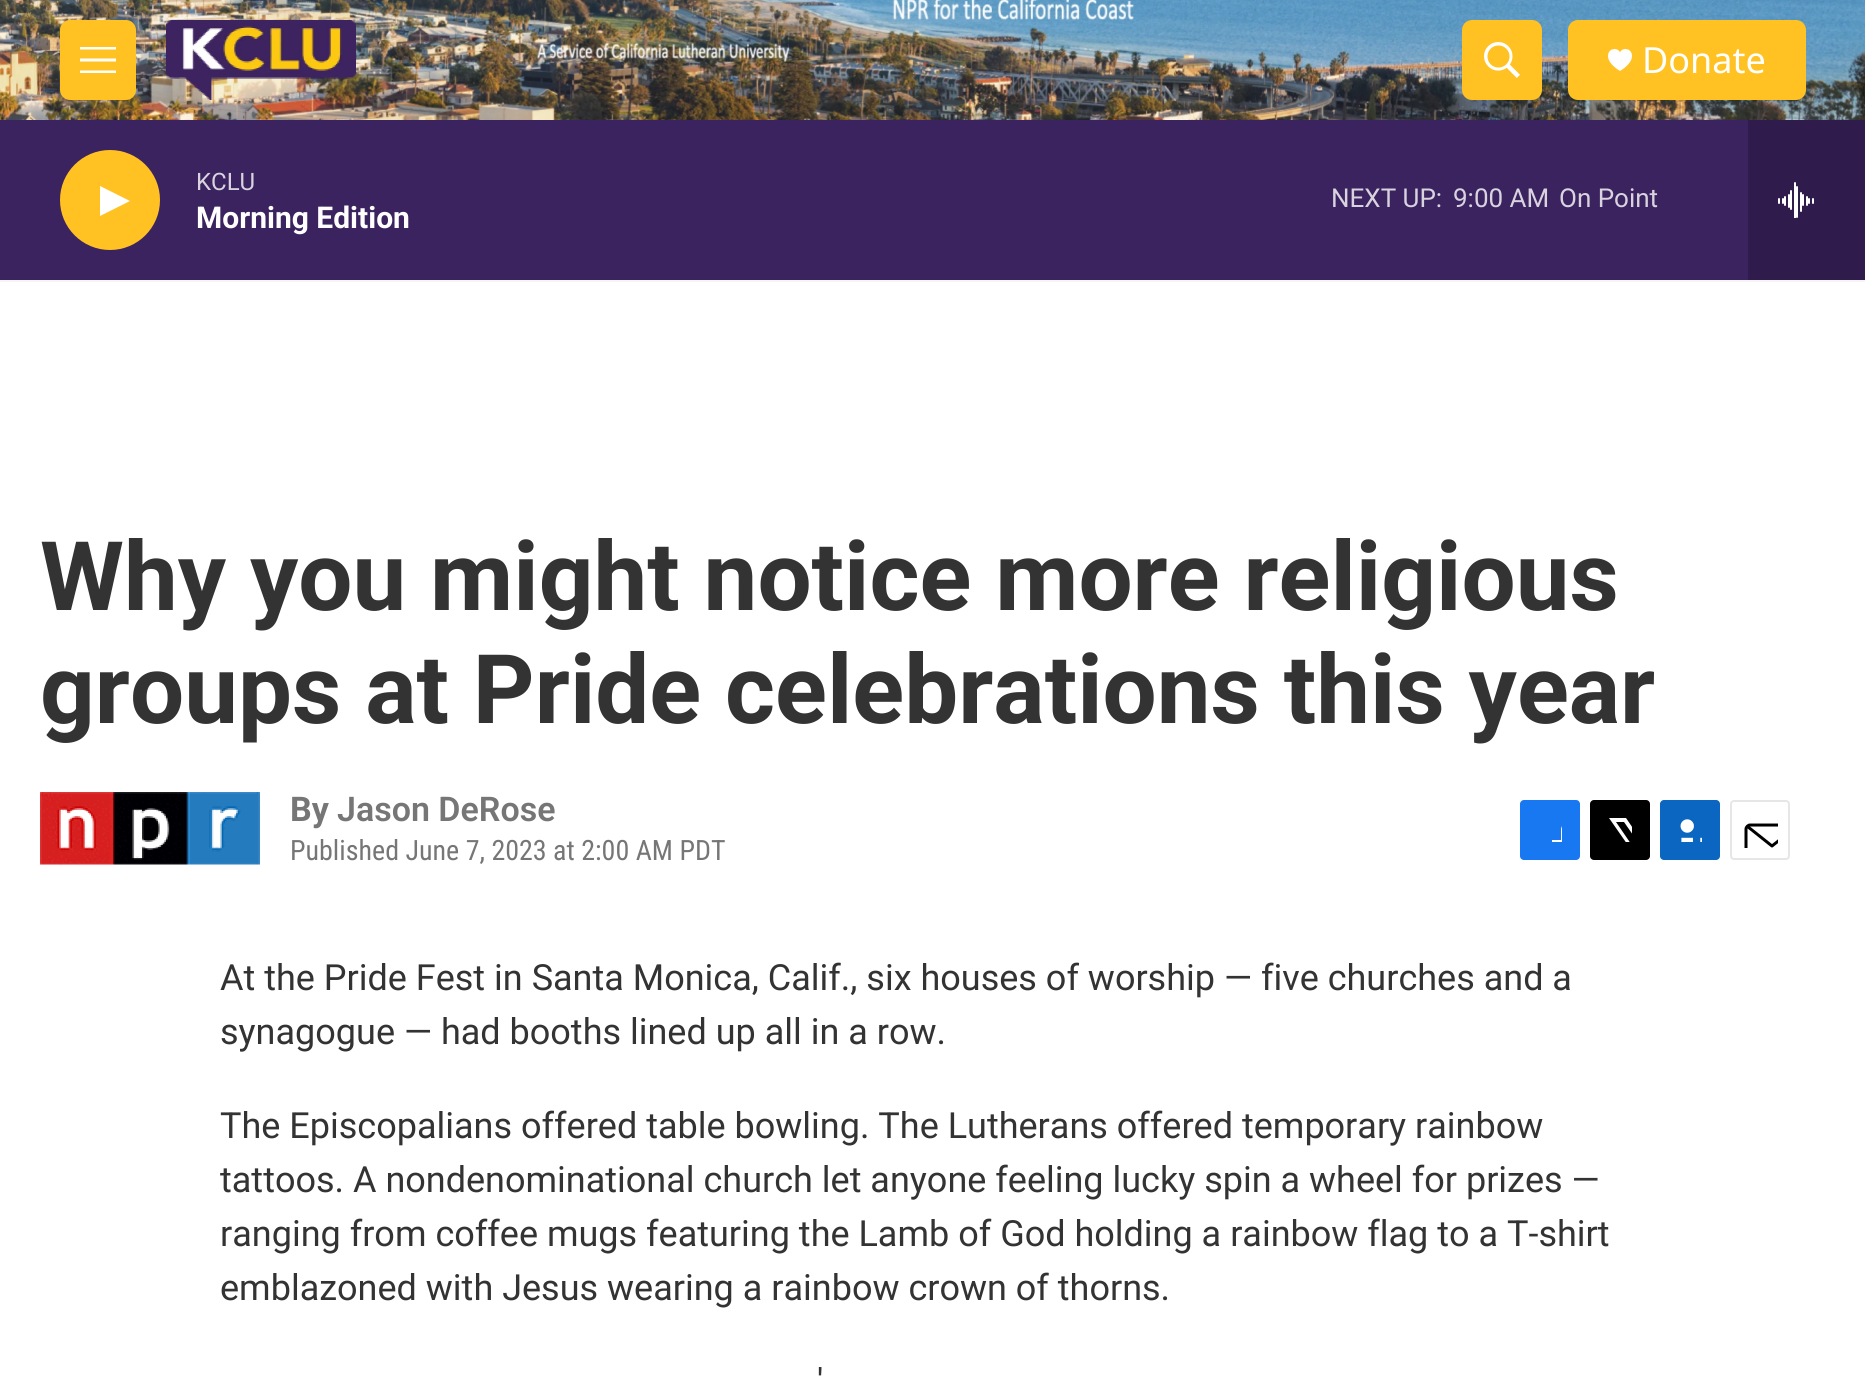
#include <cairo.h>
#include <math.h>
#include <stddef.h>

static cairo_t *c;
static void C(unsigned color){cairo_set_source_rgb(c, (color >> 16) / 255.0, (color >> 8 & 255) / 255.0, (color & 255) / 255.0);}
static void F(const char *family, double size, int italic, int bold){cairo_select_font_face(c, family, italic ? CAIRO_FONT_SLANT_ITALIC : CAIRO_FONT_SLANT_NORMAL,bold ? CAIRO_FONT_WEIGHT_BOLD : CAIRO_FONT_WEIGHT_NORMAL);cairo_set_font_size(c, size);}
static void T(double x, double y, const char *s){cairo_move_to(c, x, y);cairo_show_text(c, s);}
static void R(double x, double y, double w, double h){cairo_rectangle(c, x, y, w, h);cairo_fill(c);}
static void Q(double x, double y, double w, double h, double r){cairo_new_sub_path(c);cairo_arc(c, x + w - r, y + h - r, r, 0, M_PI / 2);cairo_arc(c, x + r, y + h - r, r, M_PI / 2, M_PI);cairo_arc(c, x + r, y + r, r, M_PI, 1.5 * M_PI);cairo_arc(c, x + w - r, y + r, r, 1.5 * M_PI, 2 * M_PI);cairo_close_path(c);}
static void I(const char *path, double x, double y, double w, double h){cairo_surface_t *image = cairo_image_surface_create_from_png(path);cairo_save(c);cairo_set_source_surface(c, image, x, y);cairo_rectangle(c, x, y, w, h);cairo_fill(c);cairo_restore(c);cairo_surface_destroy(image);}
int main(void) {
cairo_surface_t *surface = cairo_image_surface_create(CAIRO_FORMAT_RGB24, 1865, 1383);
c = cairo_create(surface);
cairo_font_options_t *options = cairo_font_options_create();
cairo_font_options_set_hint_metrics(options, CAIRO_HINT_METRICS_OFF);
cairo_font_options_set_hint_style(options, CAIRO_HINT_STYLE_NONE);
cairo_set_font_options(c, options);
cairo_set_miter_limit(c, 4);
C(0xffffff);
cairo_paint(c);
C(0xf5f5f5);
R(0,280,1865,2);
I("1.png",0,0,1865,120);
C(0xffc222);
Q(60,20,76,80,10);
cairo_fill(c);
C(0xffffff);
cairo_set_fill_rule(c,CAIRO_FILL_RULE_EVEN_ODD);
cairo_new_path(c);
cairo_move_to(c,80,61.5);
cairo_line_to(c,80,58.5);
cairo_line_to(c,116,58.5);
cairo_line_to(c,116,61.5);
cairo_close_path(c);
cairo_move_to(c,80,49.5);
cairo_line_to(c,80,47);
cairo_line_to(c,116,47);
cairo_line_to(c,116,49.5);
cairo_close_path(c);
cairo_move_to(c,80,73);
cairo_line_to(c,80,70.5);
cairo_line_to(c,116,70.5);
cairo_line_to(c,116,73);
cairo_close_path(c);
cairo_fill(c);
I("2.png",166,20,190,80);
C(0xffc222);
Q(1462,20,80,80,10);
cairo_fill(c);
I("3.png",1484,42,36,36);
Q(1568,20,238,80,10);
cairo_fill(c);
I("4.png",1608,49,24,22);
F("Noto Sans",36,0,0);
C(0xffffff);
T(1642,73,"Donate");
C(0x3b2360);
R(0,120,1748,160);
C(0xffc222);
cairo_new_path(c);
cairo_arc(c,110,200,50,0,2 * M_PI);
cairo_fill(c);
C(0xffffff);
cairo_set_fill_rule(c,CAIRO_FILL_RULE_WINDING);
cairo_new_path(c);
cairo_move_to(c,100,186);
cairo_line_to(c,130,201);
cairo_line_to(c,100,216);
cairo_close_path(c);
cairo_fill(c);
F("Roboto",24,0,0);
C(0xd8d3df);
T(196,190,"KCLU");
F("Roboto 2",30,0,1);
C(0xffffff);
T(196,228,"Morning Edition");
F("Roboto",26,0,0);
C(0xd8d3df);
T(1331,207,"NEXT UP:");
T(1453,207,"9:00 AM");
T(1559,207,"On Point");
C(0x2f1c4d);
R(1748,120,117,160);
I("5.png",1778,182,36,36);
F("Roboto",96,0,1);
C(0x333333);
T(40,610,"Why you might notice more religious");
T(40,723,"groups at Pride celebrations this year");
I("6.png",40,792,220,74);
F("Roboto",34,0,1);
C(0x767676);
T(290,821,"By");
F("Roboto SemiBold",34,0,0);
T(337,821,"Jason DeRose");
F("Roboto Condensed",28,0,0);
T(290,860,"Published June 7, 2023 at 2:00 AM PDT");
C(0x1778f2);
Q(1520,800,60,60,4);
cairo_fill(c);
cairo_save(c);
cairo_rectangle(c,1538,818,24,24);
cairo_clip(c);
C(0xffffff);
cairo_new_path(c);
cairo_move_to(c,1571,860);
cairo_line_to(c,1561,860);
cairo_line_to(c,1561,850);
cairo_line_to(c,1552,850);
cairo_line_to(c,1552,840);
cairo_line_to(c,1561,840);
cairo_line_to(c,1561,829);
cairo_curve_to(c,1563,820,1572,818,1580,819);
cairo_line_to(c,1580,828);
cairo_curve_to(c,1569,828,1571,831,1571,840);
cairo_line_to(c,1580,840);
cairo_line_to(c,1580,845);
cairo_line_to(c,1579,850);
cairo_line_to(c,1571,850);
cairo_close_path(c);
cairo_fill(c);
cairo_restore(c);
C(0x000000);
Q(1590,800,60,60,4);
cairo_fill(c);
cairo_save(c);
cairo_rectangle(c,1608,818,24,24);
cairo_clip(c);
C(0xffffff);
cairo_new_path(c);
cairo_move_to(c,1644,843);
cairo_line_to(c,1650,852);
cairo_curve_to(c,1650,854,1651,857,1649,858);
cairo_line_to(c,1624,822);
cairo_line_to(c,1616,822);
cairo_line_to(c,1642,860);
cairo_line_to(c,1637,860);
cairo_line_to(c,1634,855);
cairo_line_to(c,1630,860);
cairo_line_to(c,1624,860);
cairo_line_to(c,1632,851);
cairo_line_to(c,1609,818);
cairo_line_to(c,1626,818);
cairo_line_to(c,1641,840);
cairo_line_to(c,1650,830);
cairo_line_to(c,1650,836);
cairo_close_path(c);
cairo_fill(c);
cairo_restore(c);
C(0x0a66c1);
Q(1660,800,60,60,4);
cairo_fill(c);
I("7.png",1680,819,22,23);
Q(1731,801,58,58,3);
C(0xe6e6e6);
cairo_stroke(c);
cairo_save(c);
cairo_rectangle(c,1742,812,36,36);
cairo_clip(c);
cairo_new_path(c);
cairo_move_to(c,1798,856);
cairo_curve_to(c,1798,858,1796,859.5,1794,859.5);
cairo_line_to(c,1750,859.5);
cairo_curve_to(c,1748,859.5,1746,858,1746,856);
cairo_line_to(c,1746,829);
cairo_curve_to(c,1746,827,1748,825,1750,825);
cairo_line_to(c,1794,825);
cairo_curve_to(c,1796,825,1798,827,1798,829);
cairo_close_path(c);
cairo_move_to(c,1796.5,826.5);
cairo_line_to(c,1772,846);
cairo_line_to(c,1747.5,826.5);
C(0x000000);
cairo_set_line_width(c,3);
cairo_set_line_cap(c,CAIRO_LINE_CAP_ROUND);
cairo_set_line_join(c,CAIRO_LINE_JOIN_ROUND);
cairo_stroke(c);
cairo_restore(c);
F("Roboto",36,0,0);
C(0x333333);
T(220,990,"At the Pride Fest in Santa Monica, Calif., six houses of worship — five churches and a");
T(220,1044,"synagogue — had booths lined up all in a row.");
T(220,1138,"The Episcopalians offered table bowling. The Lutherans offered temporary rainbow");
T(220,1192,"tattoos. A nondenominational church let anyone feeling lucky spin a wheel for prizes —");
T(220,1246,"ranging from coffee mugs featuring the Lamb of God holding a rainbow flag to a T-shirt");
T(220,1300,"emblazoned with Jesus wearing a rainbow crown of thorns.");
T(817,1394,"'");
cairo_surface_write_to_png(surface, "o.png");
cairo_font_options_destroy(options);
cairo_destroy(c);
cairo_surface_destroy(surface);
return 0;
}
